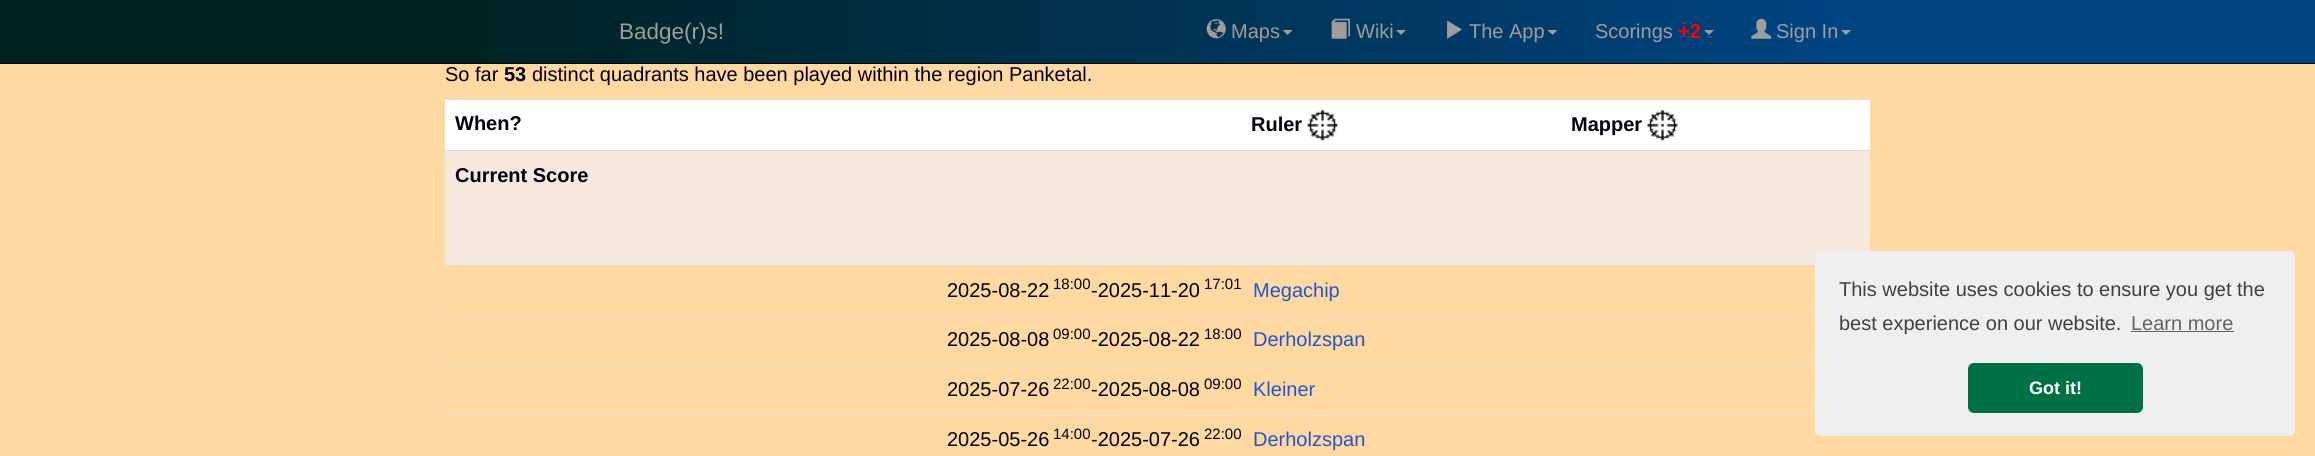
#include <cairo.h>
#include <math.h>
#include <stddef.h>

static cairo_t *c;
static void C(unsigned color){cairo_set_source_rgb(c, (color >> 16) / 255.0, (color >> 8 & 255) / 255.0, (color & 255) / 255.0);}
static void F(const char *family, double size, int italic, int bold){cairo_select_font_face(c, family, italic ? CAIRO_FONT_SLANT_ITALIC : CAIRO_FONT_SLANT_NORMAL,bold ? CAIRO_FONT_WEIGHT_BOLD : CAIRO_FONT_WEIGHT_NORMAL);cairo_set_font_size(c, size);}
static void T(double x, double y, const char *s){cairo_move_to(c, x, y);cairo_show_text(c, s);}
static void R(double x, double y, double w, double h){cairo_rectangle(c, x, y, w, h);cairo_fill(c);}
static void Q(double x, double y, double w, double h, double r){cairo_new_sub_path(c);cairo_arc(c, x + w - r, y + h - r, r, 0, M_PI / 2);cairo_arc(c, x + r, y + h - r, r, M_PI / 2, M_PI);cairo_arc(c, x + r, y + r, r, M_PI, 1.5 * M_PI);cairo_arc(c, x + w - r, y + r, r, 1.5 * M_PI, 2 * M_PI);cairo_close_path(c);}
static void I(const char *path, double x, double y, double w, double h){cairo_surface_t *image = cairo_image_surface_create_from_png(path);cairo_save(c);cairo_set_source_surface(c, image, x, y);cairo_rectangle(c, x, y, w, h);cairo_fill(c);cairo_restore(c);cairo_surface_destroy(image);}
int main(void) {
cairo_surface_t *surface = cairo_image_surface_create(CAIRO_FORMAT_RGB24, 2315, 456);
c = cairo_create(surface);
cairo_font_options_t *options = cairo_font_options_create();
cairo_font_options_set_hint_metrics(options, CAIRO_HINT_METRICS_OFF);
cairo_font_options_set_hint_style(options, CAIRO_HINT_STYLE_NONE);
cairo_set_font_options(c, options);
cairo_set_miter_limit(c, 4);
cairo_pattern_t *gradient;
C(0xffd9a1);
cairo_paint(c);
gradient = cairo_pattern_create_linear(0,31,2315,31);
cairo_pattern_add_color_stop_rgba(gradient,.2,0,0.133,0.133,1);
cairo_pattern_add_color_stop_rgba(gradient,.8,0,0.267,0.51,1);
cairo_set_source(c,gradient);
cairo_pattern_destroy(gradient);
R(0,0,2315,63);
C(0x080808);
R(0,63,2315,1);
F("Liberation Sans",22.5,0,0);
C(0x9d9d9d);
T(619,39,"Badge(r)s!");
I("1.png",1206,19,20,20);
F("Liberation Sans",20,0,0);
T(1231,38,"Maps");
cairo_new_path(c);
cairo_move_to(c,1282.5,30);
cairo_line_to(c,1292.5,30);
cairo_line_to(c,1287.5,35);
cairo_close_path(c);
cairo_fill(c);
I("2.png",1331,18,19,21);
T(1356,38,"Wiki");
cairo_new_path(c);
cairo_move_to(c,1396,30);
cairo_line_to(c,1406,30);
cairo_line_to(c,1401,35);
cairo_close_path(c);
cairo_fill(c);
I("3.png",1447,20,15,19);
T(1469,38,"The App");
cairo_new_path(c);
cairo_move_to(c,1547.5,30);
cairo_line_to(c,1557.5,30);
cairo_line_to(c,1552.5,35);
cairo_close_path(c);
cairo_fill(c);
T(1595,38,"Scorings");
F("Liberation Sans",20,0,1);
C(0xff0000);
T(1678,38,"+2");
C(0x9d9d9d);
cairo_new_path(c);
cairo_move_to(c,1704,30);
cairo_line_to(c,1714,30);
cairo_line_to(c,1709,35);
cairo_close_path(c);
cairo_fill(c);
I("4.png",1751,18,21,21);
F("Liberation Sans",20,0,0);
T(1776,38,"Sign In");
cairo_new_path(c);
cairo_move_to(c,1841,30);
cairo_line_to(c,1851,30);
cairo_line_to(c,1846,35);
cairo_close_path(c);
cairo_fill(c);
C(0x00000f);
T(445,81,"So far");
F("Liberation Sans",20,0,1);
T(504,81,"53");
F("Liberation Sans",20,0,0);
T(532,81,"distinct quadrants have been played within the region Panketal.");
C(0xffffff);
R(445,100,1425,50);
F("Liberation Sans",20,0,1);
C(0x00000f);
T(455,130,"When?");
T(1251,131,"Ruler");
I("5.png",1307,110,31,31);
C(0xdddddd);
R(445,99,1426,1);
C(0x00000f);
T(1571,131,"Mapper");
I("6.png",1647,110,31,31);
C(0xf6e8dc);
R(445,151,1425,114);
C(0xdddddd);
R(445,150,1426,1);
C(0x00000f);
T(455,182,"Current Score");
C(0xdddddd);
R(445,265,1370,1);
F("Liberation Sans",20,0,0);
C(0x00000f);
T(947,297,"2025-08-22");
F("Liberation Sans",15,0,0);
T(1053,289,"18:00");
F("Liberation Sans",20,0,0);
T(1091,297,"-2025-11-20");
F("Liberation Sans",15,0,0);
T(1204,289,"17:01");
F("Liberation Sans",20,0,0);
C(0x2256cc);
T(1253,297,"Megachip");
C(0xdddddd);
R(445,315,1370,1);
C(0x00000f);
T(947,346,"2025-08-08");
F("Liberation Sans",15,0,0);
T(1053,339,"09:00");
F("Liberation Sans",20,0,0);
T(1091,346,"-2025-08-22");
F("Liberation Sans",15,0,0);
T(1204,339,"18:00");
F("Liberation Sans",20,0,0);
C(0x2256cc);
T(1253,346,"Derholzspan");
C(0xdddddd);
R(445,365,1370,1);
C(0x00000f);
T(947,396,"2025-07-26");
F("Liberation Sans",15,0,0);
T(1053,389,"22:00");
F("Liberation Sans",20,0,0);
T(1091,396,"-2025-08-08");
F("Liberation Sans",15,0,0);
T(1204,389,"09:00");
F("Liberation Sans",20,0,0);
C(0x2256cc);
T(1253,396,"Kleiner");
C(0xdddddd);
R(445,415,1370,1);
C(0x00000f);
T(947,446,"2025-05-26");
F("Liberation Sans",15,0,0);
T(1053,439,"14:00");
F("Liberation Sans",20,0,0);
T(1091,446,"-2025-07-26");
F("Liberation Sans",15,0,0);
T(1204,439,"22:00");
F("Liberation Sans",20,0,0);
C(0x2256cc);
T(1253,446,"Derholzspan");
C(0xefefef);
Q(1815,251,480,185,6);
cairo_fill(c);
C(0x404040);
T(1839,296,"This website uses cookies to ensure you get the");
T(1839,330,"best experience on our website.");
C(0x636363);
T(2131,330,"Learn more");
R(2131,331,103,1);
C(0x007145);
Q(1968,363,175,50,6);
cairo_fill(c);
F("Liberation Sans",18,0,1);
C(0xffffff);
T(2029,394,"Got it!");
cairo_surface_write_to_png(surface, "o.png");
cairo_font_options_destroy(options);
cairo_destroy(c);
cairo_surface_destroy(surface);
return 0;
}
